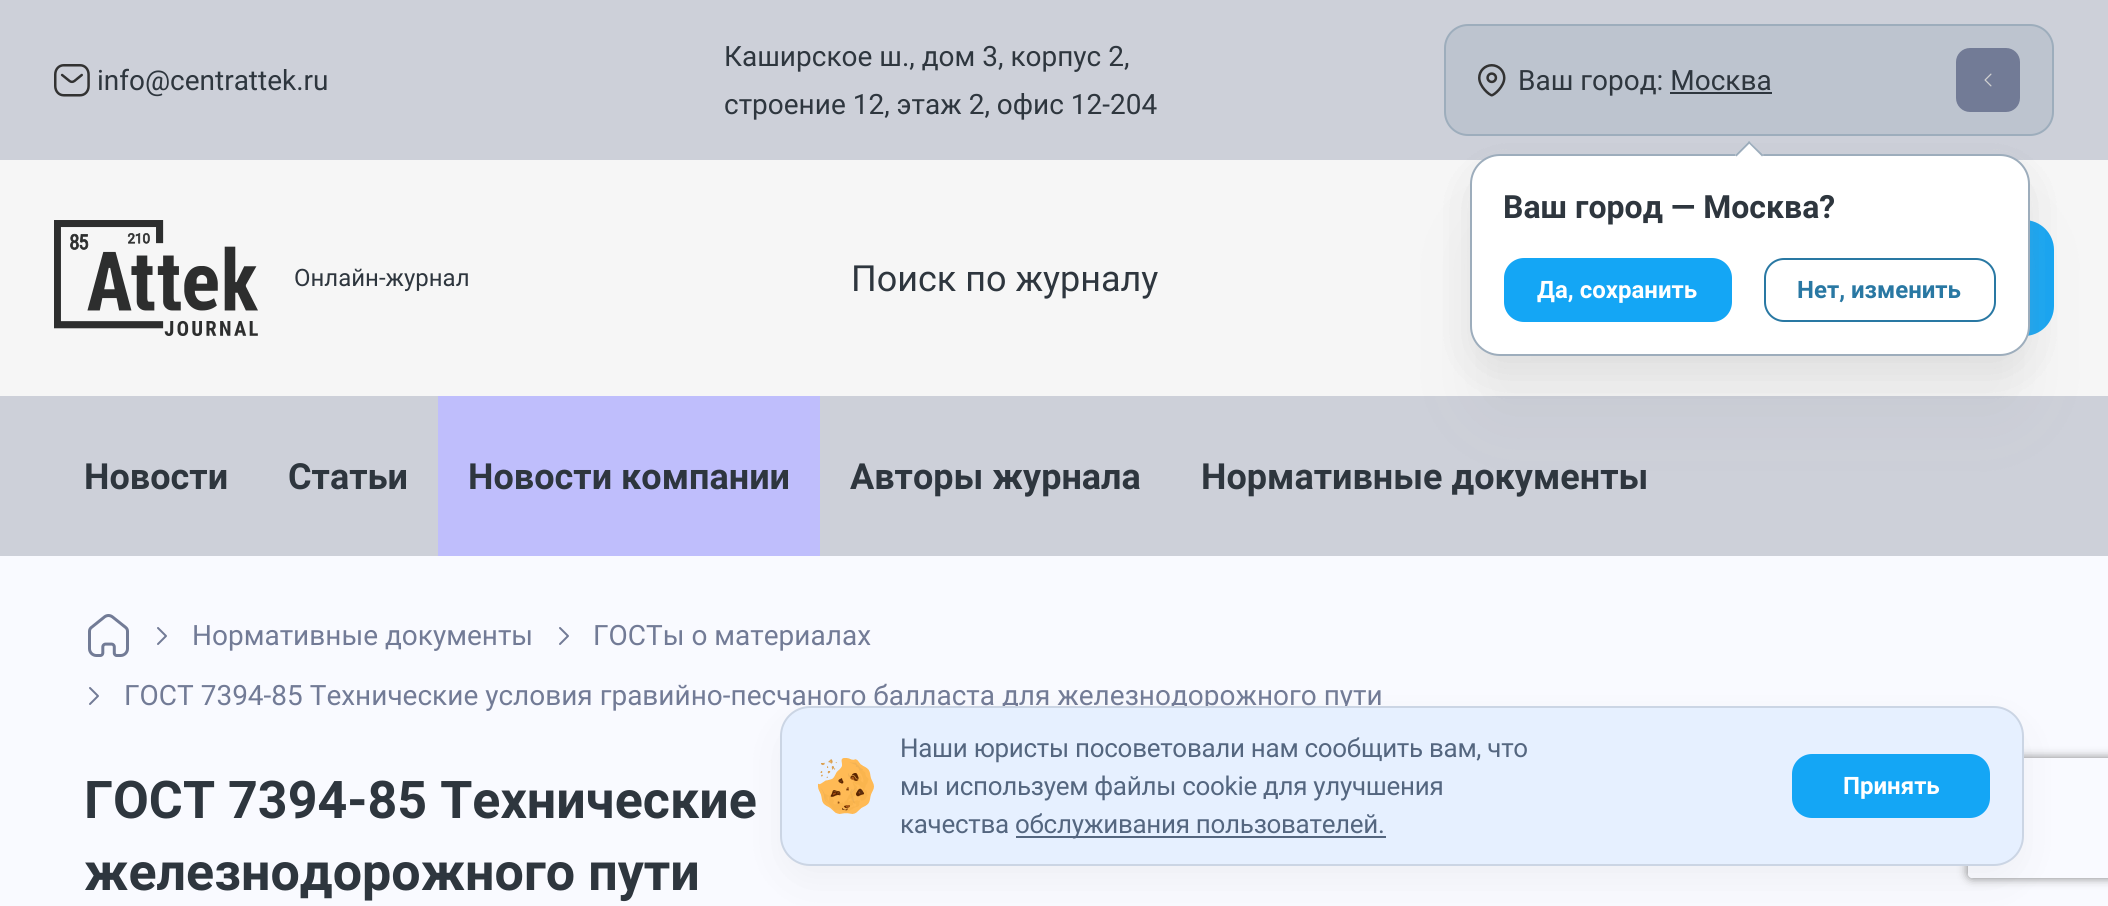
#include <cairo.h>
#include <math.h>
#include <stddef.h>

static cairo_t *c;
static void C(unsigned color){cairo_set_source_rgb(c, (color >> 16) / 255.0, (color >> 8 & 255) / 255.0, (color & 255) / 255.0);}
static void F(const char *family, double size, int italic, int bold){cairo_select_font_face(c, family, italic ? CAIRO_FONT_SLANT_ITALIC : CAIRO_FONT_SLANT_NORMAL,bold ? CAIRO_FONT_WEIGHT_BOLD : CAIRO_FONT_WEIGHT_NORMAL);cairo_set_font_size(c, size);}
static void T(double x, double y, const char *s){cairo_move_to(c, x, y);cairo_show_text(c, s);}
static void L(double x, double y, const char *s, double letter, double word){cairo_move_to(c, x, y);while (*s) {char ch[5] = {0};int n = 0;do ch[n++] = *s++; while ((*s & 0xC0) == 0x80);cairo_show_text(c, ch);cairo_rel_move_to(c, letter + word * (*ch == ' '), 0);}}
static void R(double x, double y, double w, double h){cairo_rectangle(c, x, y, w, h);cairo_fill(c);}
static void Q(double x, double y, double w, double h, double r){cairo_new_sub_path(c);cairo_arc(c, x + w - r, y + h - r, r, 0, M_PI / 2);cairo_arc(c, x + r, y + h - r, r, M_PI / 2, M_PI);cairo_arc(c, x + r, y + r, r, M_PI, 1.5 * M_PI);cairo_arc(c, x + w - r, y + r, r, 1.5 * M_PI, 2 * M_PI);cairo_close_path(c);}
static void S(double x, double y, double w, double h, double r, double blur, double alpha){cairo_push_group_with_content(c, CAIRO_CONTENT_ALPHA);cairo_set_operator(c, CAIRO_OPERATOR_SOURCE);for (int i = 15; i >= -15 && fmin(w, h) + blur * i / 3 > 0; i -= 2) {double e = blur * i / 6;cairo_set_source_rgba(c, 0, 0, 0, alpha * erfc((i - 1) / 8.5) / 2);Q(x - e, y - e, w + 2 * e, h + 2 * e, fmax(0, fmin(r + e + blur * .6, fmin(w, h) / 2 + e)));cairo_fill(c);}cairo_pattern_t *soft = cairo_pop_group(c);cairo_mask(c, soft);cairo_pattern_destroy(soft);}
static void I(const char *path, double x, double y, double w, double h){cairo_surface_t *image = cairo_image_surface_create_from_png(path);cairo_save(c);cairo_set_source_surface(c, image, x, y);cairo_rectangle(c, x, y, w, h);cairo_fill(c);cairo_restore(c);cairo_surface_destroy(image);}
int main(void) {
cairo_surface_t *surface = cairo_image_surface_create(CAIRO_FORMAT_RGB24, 2108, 906);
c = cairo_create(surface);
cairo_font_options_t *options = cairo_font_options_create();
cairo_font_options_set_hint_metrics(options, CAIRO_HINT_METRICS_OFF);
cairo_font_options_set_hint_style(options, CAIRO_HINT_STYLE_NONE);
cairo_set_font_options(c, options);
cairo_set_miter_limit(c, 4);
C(0xf9faff);
cairo_paint(c);
C(0xcdd0d9);
R(0,0,2108,160);
I("1.png",54,64,36,33);
F("Roboto",28,0,0);
C(0x2e363e);
T(97,90,"info@centrattek.ru");
T(724,66,"Каширское ш., дом 3, корпус 2,");
T(724,114,"строение 12, этаж 2, офис 12-204");
C(0xbdc4cf);
Q(1445,25,608,110,23);
cairo_fill_preserve(c);
C(0x9dadbc);
cairo_stroke(c);
I("2.png",1478,64,28,33);
C(0x2e363e);
T(1518,90,"Ваш город: Москва");
R(1670,92,102,2);
C(0x727b96);
Q(1956,48,64,64,14);
cairo_fill(c);
I("3.png",1984,73,8,14);
C(0xf6f6f6);
R(0,160,2108,236);
I("4.png",54,220,204,116);
F("Roboto",24,0,0);
C(0x2e363e);
T(294,286,"Онлайн-журнал");
F("Roboto",36,0,0);
T(851,291,"Поиск по журналу");
C(0x14a6f5);
Q(1546,222,506,112,28);
cairo_fill_preserve(c);
cairo_set_line_width(c,4);
cairo_stroke(c);
C(0xcdd0d9);
R(0,396,2108,160);
F("Roboto",36,0,1);
C(0x2e363e);
T(84,489,"Новости");
T(288,489,"Статьи");
C(0xbfbefc);
R(438,396,382,160);
C(0x2e363e);
T(468,489,"Новости компании");
T(850,489,"Авторы журнала");
T(1201,489,"Нормативные документы");
C(0x999999);
S(1470,170,560,202,30,18,.1);
S(1470,220,560,202,30,33,.09);
S(1470,170,560,202,30,18,.1);
C(0xffffff);
Q(1471,155,558,200,29);
cairo_fill_preserve(c);
C(0x9dadbc);
cairo_set_line_width(c,2);
cairo_stroke(c);
C(0xffffff);
cairo_new_path(c);
cairo_move_to(c,1749,141);
cairo_line_to(c,1763.5,155);
cairo_line_to(c,1749,169);
cairo_line_to(c,1735,155);
cairo_close_path(c);
cairo_fill(c);
C(0x9dadbc);
cairo_new_path(c);
cairo_move_to(c,1749,141);
cairo_line_to(c,1763.5,155);
cairo_line_to(c,1762,156.5);
cairo_line_to(c,1748,142.5);
cairo_close_path(c);
cairo_fill(c);
cairo_new_path(c);
cairo_move_to(c,1749,141);
cairo_line_to(c,1750.5,142.5);
cairo_line_to(c,1736.5,156.5);
cairo_line_to(c,1735,155);
cairo_close_path(c);
cairo_fill(c);
F("Roboto",32,0,1);
C(0x2e363e);
T(1503,218,"Ваш город — Москва?");
C(0x14a6f5);
Q(1505,259,226,62,19);
cairo_fill_preserve(c);
cairo_stroke(c);
F("Roboto",24,0,1);
C(0xffffff);
T(1537,298,"Да, сохранить");
Q(1765,259,230,62,19);
C(0x2978a3);
cairo_stroke(c);
T(1797,298,"Нет, изменить");
I("5.png",88,614,41,43);
cairo_new_path(c);
cairo_move_to(c,158,628);
cairo_line_to(c,166,636);
cairo_line_to(c,158,644);
C(0x727b96);
cairo_set_line_cap(c,CAIRO_LINE_CAP_ROUND);
cairo_set_line_join(c,CAIRO_LINE_JOIN_ROUND);
cairo_stroke(c);
F("Roboto",28,0,0);
T(192,645,"Нормативные документы");
cairo_new_path(c);
cairo_move_to(c,560,628);
cairo_line_to(c,568,636);
cairo_line_to(c,560,644);
cairo_stroke(c);
T(593,645,"ГОСТы о материалах");
cairo_new_path(c);
cairo_move_to(c,90,688);
cairo_line_to(c,98,696);
cairo_line_to(c,90,704);
cairo_stroke(c);
T(124,705,"ГОСТ 7394-85 Технические условия гравийно-песчаного балласта для железнодорожного пути");
F("Roboto",52,0,1);
C(0x2e363e);
T(84,818,"ГОСТ 7394-85 Технические");
T(84,890,"железнодорожного пути");
C(0x999999);
S(780,722,1244,160,30,18,.1);
cairo_save(c);
cairo_set_fill_rule(c,CAIRO_FILL_RULE_EVEN_ODD);
cairo_new_path(c);
cairo_move_to(c,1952,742);
cairo_line_to(c,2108,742);
cairo_line_to(c,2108,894);
cairo_line_to(c,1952,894);
cairo_close_path(c);
cairo_move_to(c,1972,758);
cairo_line_to(c,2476,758);
cairo_curve_to(c,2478,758,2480,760,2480,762);
cairo_line_to(c,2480,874);
cairo_curve_to(c,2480,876,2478,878,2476,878);
cairo_line_to(c,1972,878);
cairo_curve_to(c,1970,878,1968,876,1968,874);
cairo_line_to(c,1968,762);
cairo_curve_to(c,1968,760,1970,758,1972,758);
cairo_close_path(c);
cairo_clip(c);
C(0x808080);
S(1968,758,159,120,4,5,1);
cairo_restore(c);
C(0xe6f0ff);
Q(781,707,1242,158,29);
cairo_fill_preserve(c);
C(0xcbd5e4);
cairo_set_line_cap(c,CAIRO_LINE_CAP_BUTT);
cairo_set_line_join(c,CAIRO_LINE_JOIN_MITER);
cairo_stroke(c);
I("6.png",818,758,56,56);
F("Roboto",26,0,0);
C(0x54667f);
L(900,757,"Наши юристы посоветовали нам сообщить вам, что",-.3,0);
L(900,795,"мы используем файлы cookie для улучшения",-.3,0);
L(900,833,"качества",-.3,0);
R(1016,836,370,2);
L(1015,833,"обслуживания пользователей.",-.3,0);
C(0x14a6f5);
Q(1794,756,194,60,18);
cairo_fill_preserve(c);
cairo_set_line_width(c,4);
cairo_stroke(c);
F("Roboto",24,0,1);
C(0xffffff);
T(1843,794,"Принять");
cairo_surface_write_to_png(surface, "o.png");
cairo_font_options_destroy(options);
cairo_destroy(c);
cairo_surface_destroy(surface);
return 0;
}
